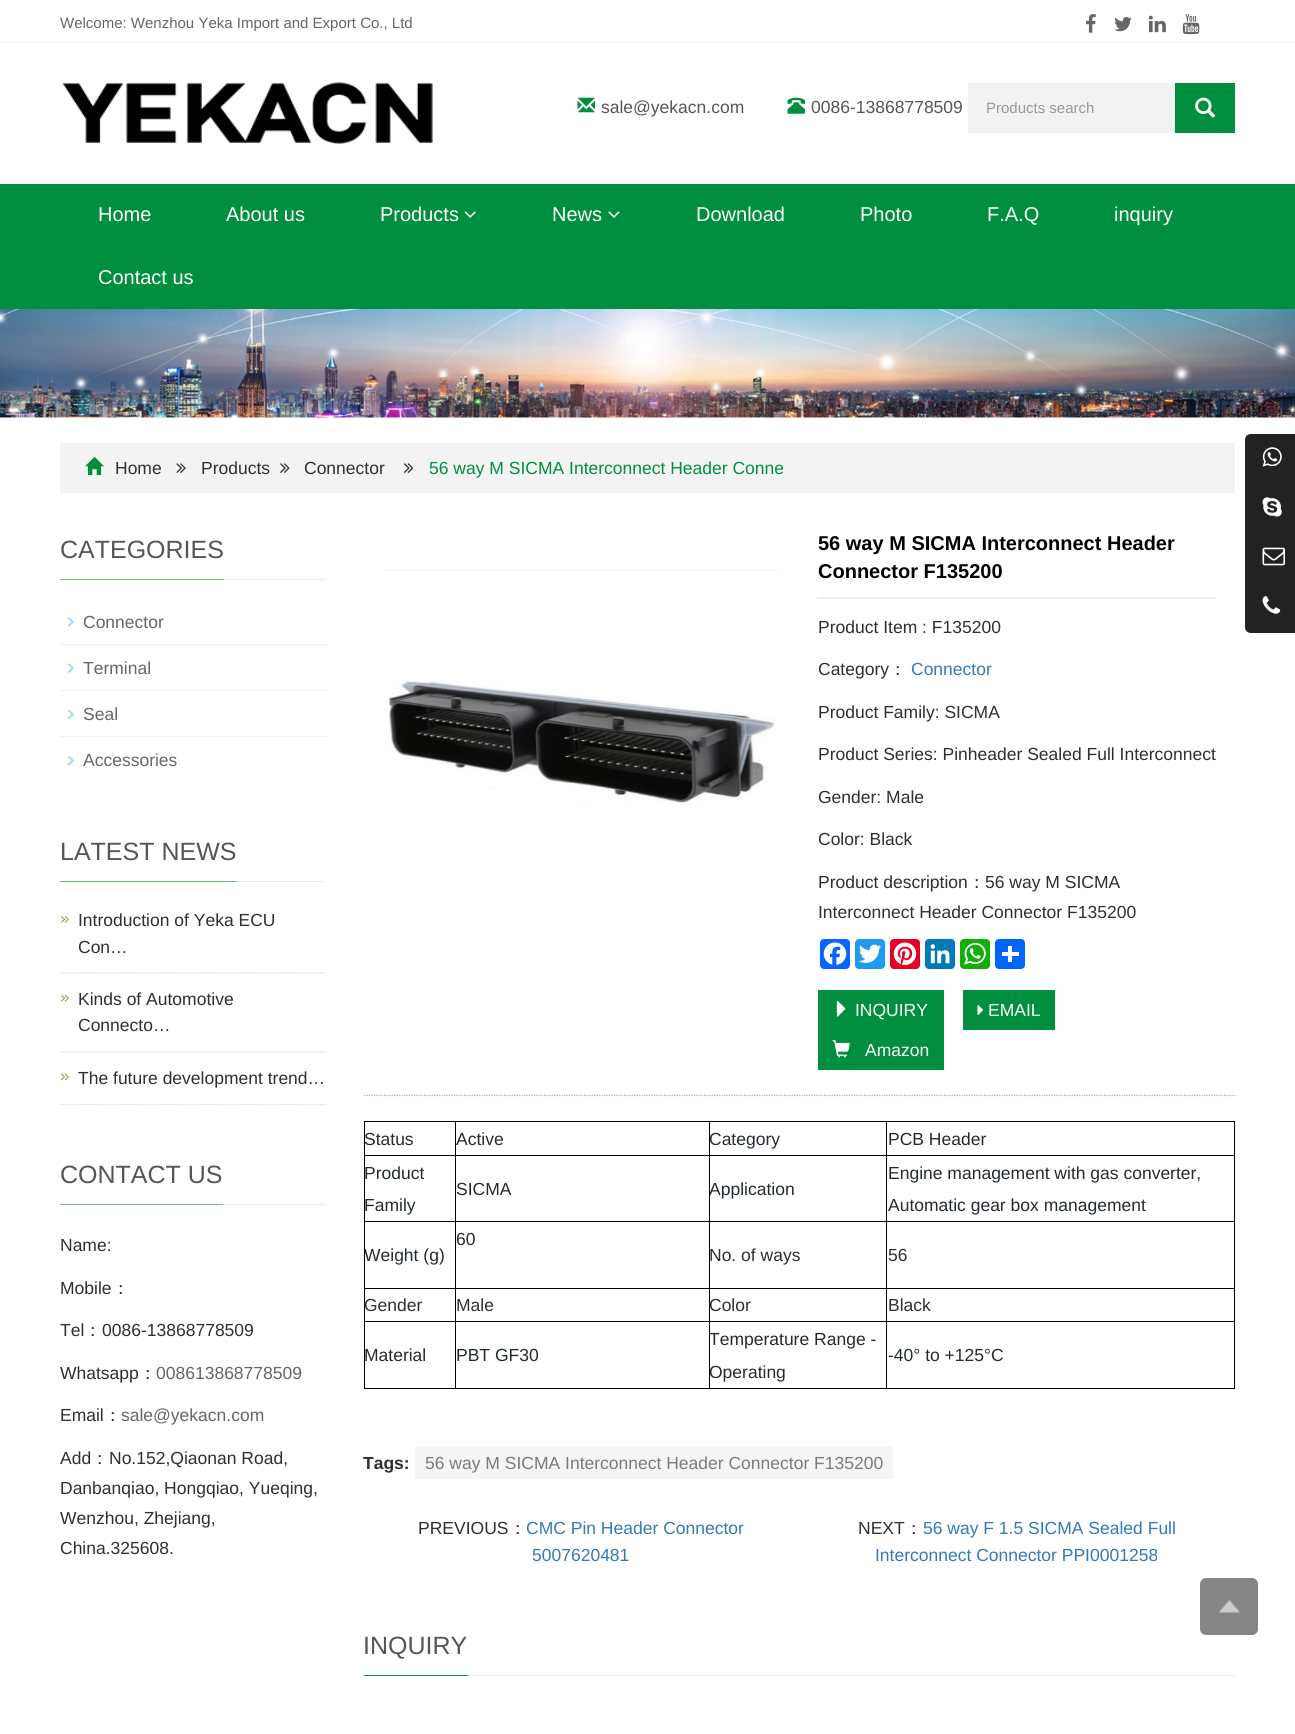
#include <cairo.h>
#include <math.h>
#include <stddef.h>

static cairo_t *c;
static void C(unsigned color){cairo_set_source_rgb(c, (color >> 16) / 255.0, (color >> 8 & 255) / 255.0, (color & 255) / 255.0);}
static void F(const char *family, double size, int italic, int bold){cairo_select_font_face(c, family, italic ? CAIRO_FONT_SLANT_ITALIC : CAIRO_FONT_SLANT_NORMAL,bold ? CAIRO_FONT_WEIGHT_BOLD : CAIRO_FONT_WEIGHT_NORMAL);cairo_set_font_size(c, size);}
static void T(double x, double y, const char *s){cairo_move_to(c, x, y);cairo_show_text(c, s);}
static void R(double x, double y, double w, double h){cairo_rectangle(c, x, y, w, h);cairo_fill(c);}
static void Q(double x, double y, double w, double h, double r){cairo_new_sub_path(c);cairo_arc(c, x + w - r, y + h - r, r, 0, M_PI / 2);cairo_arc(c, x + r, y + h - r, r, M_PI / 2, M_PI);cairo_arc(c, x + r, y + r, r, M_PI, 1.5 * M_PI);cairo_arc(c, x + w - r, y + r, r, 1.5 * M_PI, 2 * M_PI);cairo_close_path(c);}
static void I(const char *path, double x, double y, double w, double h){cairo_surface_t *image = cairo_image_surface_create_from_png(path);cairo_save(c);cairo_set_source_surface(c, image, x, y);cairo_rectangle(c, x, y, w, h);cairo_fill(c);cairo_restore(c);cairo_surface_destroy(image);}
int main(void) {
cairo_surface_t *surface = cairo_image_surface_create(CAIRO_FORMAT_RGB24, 1295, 1734);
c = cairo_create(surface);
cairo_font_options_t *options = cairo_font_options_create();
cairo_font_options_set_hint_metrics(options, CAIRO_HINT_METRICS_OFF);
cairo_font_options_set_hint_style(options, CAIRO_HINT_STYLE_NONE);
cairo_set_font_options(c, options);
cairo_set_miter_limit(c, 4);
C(0xffffff);
cairo_paint(c);
C(0xf1f1f1);
R(0,41,1295,1);
F("Liberation Sans",15,0,0);
C(0x666666);
T(60,28,"Welcome: Wenzhou Yeka Import and Export Co., Ltd");
I("1.png",1086,14,10,19);
I("2.png",1114,17,18,15);
I("3.png",1148,15,18,18);
I("4.png",1182,14,18,21);
I("5.png",62,82,371,62);
I("6.png",577,97,18,16);
F("Liberation Sans",17.5,0,0);
C(0x565656);
T(601,113,"sale@yekacn.com");
I("7.png",787,97,18,17);
T(811,113,"0086-13868778509");
C(0xf2f2f2);
R(968,83,207,50);
F("Liberation Sans",15,0,0);
C(0x999999);
T(986,113,"Products search");
C(0x008e3f);
R(1175,83,60,50);
I("8.png",1195,97,21,21);
R(0,184,1295,125);
F("Liberation Sans",20,0,0);
C(0xffffff);
T(98,221,"Home");
T(226,221,"About us");
T(380,221,"Products");
I("9.png",464,211,12,7);
T(552,221,"News");
I("10.png",608,211,12,7);
T(696,221,"Download");
T(860,221,"Photo");
T(987,221,"F.A.Q");
T(1114,221,"inquiry");
T(98,284,"Contact us");
I("11.png",0,309,1295,109);
C(0xf3f3f3);
R(60,443,1175,50);
I("12.png",85,457,19,18);
F("Liberation Sans",17.5,0,0);
C(0x2f2f2f);
T(115,474,"Home");
I("13.png",176,463,10,10);
T(201,474,"Products");
I("14.png",280,463,10,10);
T(304,474,"Connector");
I("15.png",403,463,11,10);
C(0x008e3f);
T(429,474,"56 way M SICMA Interconnect Header Conne");
C(0x222222);
cairo_new_path(c);
cairo_move_to(c,1251,434);
cairo_line_to(c,1295,434);
cairo_line_to(c,1295,633);
cairo_line_to(c,1251,633);
cairo_curve_to(c,1247.5,633,1245,630.5,1245,627);
cairo_line_to(c,1245,440);
cairo_curve_to(c,1245,436.5,1247.5,434,1251,434);
cairo_close_path(c);
cairo_fill(c);
I("16.png",1262,447,20,20);
I("17.png",1262,497,20,20);
I("18.png",1262,547,23,19);
I("19.png",1262,596,19,18);
C(0xebebeb);
R(224,579,102,1);
C(0x65bc7b);
R(60,579,164,1);
F("Liberation Sans",25,0,0);
C(0x565656);
T(60,558,"CATEGORIES");
I("20.png",67,617,7,10);
C(0xf2f2f2);
R(60,644,266,1);
F("Liberation Sans",17.5,0,0);
C(0x666666);
T(83,628,"Connector");
I("21.png",67,663,7,10);
C(0xf2f2f2);
R(60,690,266,1);
C(0x666666);
T(83,674,"Terminal");
I("22.png",67,710,7,9);
C(0xf2f2f2);
R(60,736,266,1);
C(0x666666);
T(83,720,"Seal");
I("23.png",67,756,7,9);
T(83,766,"Accessories");
C(0xebebeb);
R(236,881,90,1);
C(0x65bc7b);
R(60,881,176,1);
F("Liberation Sans",25,0,0);
C(0x565656);
T(60,860,"LATEST NEWS");
I("24.png",61,916,8,7);
cairo_new_path(c);
cairo_move_to(c,60,973);
cairo_line_to(c,326,973);
C(0xdddddd);
cairo_set_line_width(c,1.2);
cairo_set_dash(c,(double[]){1.25,1.25},2,0);
cairo_stroke(c);
F("Liberation Sans",17.5,0,0);
C(0x2f2f2f);
T(78,926,"Introduction of Yeka ECU");
T(78,953,"Con…");
I("25.png",61,994,8,8);
cairo_new_path(c);
cairo_move_to(c,60,1052);
cairo_line_to(c,326,1052);
C(0xdddddd);
cairo_stroke(c);
C(0x2f2f2f);
T(78,1005,"Kinds of Automotive");
T(78,1031,"Connecto…");
I("26.png",61,1073,8,8);
cairo_new_path(c);
cairo_move_to(c,60,1104.5);
cairo_line_to(c,326,1104.5);
C(0xdddddd);
cairo_stroke(c);
C(0x2f2f2f);
T(78,1084,"The future development trend…");
C(0xebebeb);
R(223,1204,103,1);
C(0x65bc7b);
R(60,1204,163,1);
F("Liberation Sans",25,0,0);
C(0x565656);
T(60,1183,"CONTACT US");
F("Liberation Sans",17.5,0,0);
C(0x2f2f2f);
T(60,1251,"Name:");
T(60,1294,"Mobile");
F("WenQuanYi Zen Hei Medium",17.5,0,0);
T(112,1294,"：");
F("Liberation Sans",17.5,0,0);
T(60,1336,"Tel");
F("WenQuanYi Zen Hei Medium",17.5,0,0);
T(84,1336,"：");
F("Liberation Sans",17.5,0,0);
T(102,1336,"0086-13868778509");
T(60,1379,"Whatsapp");
F("WenQuanYi Zen Hei Medium",17.5,0,0);
T(139,1379,"：");
F("Liberation Sans",17.5,0,0);
C(0x666666);
T(156,1379,"008613868778509");
C(0x2f2f2f);
T(60,1421,"Email");
F("WenQuanYi Zen Hei Medium",17.5,0,0);
T(104,1421,"：");
F("Liberation Sans",17.5,0,0);
C(0x666666);
T(121,1421,"sale@yekacn.com");
C(0x2f2f2f);
T(60,1464,"Add");
F("WenQuanYi Zen Hei Medium",17.5,0,0);
T(91,1464,"：");
F("Liberation Sans",17.5,0,0);
T(109,1464,"No.152,Qiaonan Road,");
T(60,1494,"Danbanqiao, Hongqiao, Yueqing,");
T(60,1524,"Wenzhou, Zhejiang,");
T(60,1554,"China.325608.");
I("27.png",382,569,398,236);
cairo_new_path(c);
cairo_move_to(c,817.5,598);
cairo_line_to(c,1216,598);
C(0xcccccc);
cairo_stroke(c);
F("Liberation Sans",20,0,1);
C(0x000000);
T(818,550,"56 way M SICMA Interconnect Header");
T(818,578,"Connector F135200");
F("Liberation Sans",17.5,0,0);
C(0x2f2f2f);
T(818,633,"Product Item : F135200");
T(818,675,"Category");
F("WenQuanYi Zen Hei Medium",17.5,0,0);
T(889,675,"：");
F("Liberation Sans",17.5,0,0);
C(0x337ab7);
T(911,675,"Connector");
C(0x2f2f2f);
T(818,718,"Product Family: SICMA");
T(818,760,"Product Series: Pinheader Sealed Full Interconnect");
T(818,803,"Gender: Male");
T(818,845,"Color: Black");
T(818,888,"Product description");
F("WenQuanYi Zen Hei Medium",17.5,0,0);
T(968,888,"：");
F("Liberation Sans",17.5,0,0);
T(985,888,"56 way M SICMA");
T(818,918,"Interconnect Header Connector F135200");
C(0x0866ff);
Q(820,939,30,30,4);
cairo_fill(c);
I("28.png",823,942,24,23);
C(0x1d9bf0);
Q(855,939,30,30,4);
cairo_fill(c);
I("29.png",859,944,23,19);
C(0xe60023);
Q(890,939,30,30,4);
cairo_fill(c);
I("30.png",893,942,24,23);
C(0x007bb5);
Q(925,939,30,30,4);
cairo_fill(c);
I("31.png",930,944,20,20);
C(0x12af0a);
Q(960,939,30,30,4);
cairo_fill(c);
I("32.png",964,942,22,23);
C(0x0166ff);
Q(995,939,30,30,4);
cairo_fill(c);
C(0xffffff);
R(1008,946,4,16);
R(1002,952,17,4);
C(0x008e3f);
R(818,990,126,80);
I("33.png",836,1000,10,17);
C(0xffffff);
T(855,1016,"INQUIRY");
C(0x008e3f);
R(963,990,92,40);
I("34.png",977,1005,6,10);
C(0xffffff);
T(988,1016,"EMAIL");
I("35.png",832,1040,18,18);
T(865,1056,"Amazon");
cairo_new_path(c);
cairo_move_to(c,364,1095.5);
cairo_line_to(c,1235,1095.5);
C(0xa9a9a9);
cairo_stroke(c);
C(0x000000);
R(364,1121,871,1);
R(1234,1121,1,268);
R(364,1388,871,1);
R(364,1121,1,268);
C(0x242b30);
T(364,1145,"Status");
C(0x000000);
R(886,1155,349,1);
R(886,1221,349,1);
R(886,1288,349,1);
R(886,1321,349,1);
R(886,1321,1,68);
R(709,1321,179,1);
R(886,1288,1,35);
R(709,1288,179,1);
R(886,1221,1,68);
R(709,1221,179,1);
R(886,1155,1,68);
R(709,1155,179,1);
R(709,1321,1,68);
R(455,1321,255,1);
R(709,1288,1,35);
R(455,1288,255,1);
R(709,1221,1,68);
R(455,1221,255,1);
R(709,1155,1,68);
R(455,1155,255,1);
R(455,1321,1,68);
R(364,1321,92,1);
R(455,1288,1,35);
R(364,1288,92,1);
R(455,1221,1,68);
R(364,1221,92,1);
R(455,1155,1,68);
R(364,1155,92,1);
R(455,1121,1,35);
C(0x242b30);
T(456,1145,"Active");
C(0x000000);
R(709,1121,1,35);
C(0x242b30);
T(709,1145,"Category");
C(0x000000);
R(886,1121,1,35);
C(0x242b30);
T(888,1145,"PCB Header");
T(364,1179,"Product");
T(364,1211,"Family");
T(456,1195,"SICMA");
T(709,1195,"Application");
T(888,1179,"Engine management with gas converter,");
T(888,1211,"Automatic gear box management");
T(456,1245,"60");
T(364,1261,"Weight (g)");
C(0x2f2f2f);
T(709,1261,"No. of ways");
T(888,1261,"56");
T(364,1311,"Gender");
T(456,1311,"Male");
T(709,1311,"Color");
T(888,1311,"Black");
C(0x242b30);
T(364,1361,"Material");
T(456,1361,"PBT GF30");
T(709,1345,"Temperature Range -");
T(709,1378,"Operating");
T(888,1361,"-40° to +125°C");
F("Liberation Sans",17.5,0,1);
C(0x2f2f2f);
T(363,1469,"Tags:");
C(0xf5f5f5);
R(415,1446,478,33);
F("Liberation Sans",17.5,0,0);
C(0x7b7b7b);
T(425,1469,"56 way M SICMA Interconnect Header Connector F135200");
C(0x2f2f2f);
T(418,1534,"PREVIOUS");
F("WenQuanYi Zen Hei Medium",17.5,0,0);
T(509,1534,"：");
F("Liberation Sans",17.5,0,0);
C(0x337ab7);
T(526,1534,"CMC Pin Header Connector");
T(532,1561,"5007620481");
C(0x2f2f2f);
T(858,1534,"NEXT");
F("WenQuanYi Zen Hei Medium",17.5,0,0);
T(905,1534,"：");
F("Liberation Sans",17.5,0,0);
C(0x337ab7);
T(923,1534,"56 way F 1.5 SICMA Sealed Full");
T(875,1561,"Interconnect Connector PPI0001258");
C(0xebebeb);
R(468,1675,767,1);
C(0x008e3f);
R(364,1675,104,1);
F("Liberation Sans",25,0,0);
C(0x565656);
T(363,1654,"INQUIRY");
C(0x858585);
Q(1200,1578,58,57,6);
cairo_fill(c);
I("36.png",1218,1599,22,14);
cairo_surface_write_to_png(surface, "o.png");
cairo_font_options_destroy(options);
cairo_destroy(c);
cairo_surface_destroy(surface);
return 0;
}
